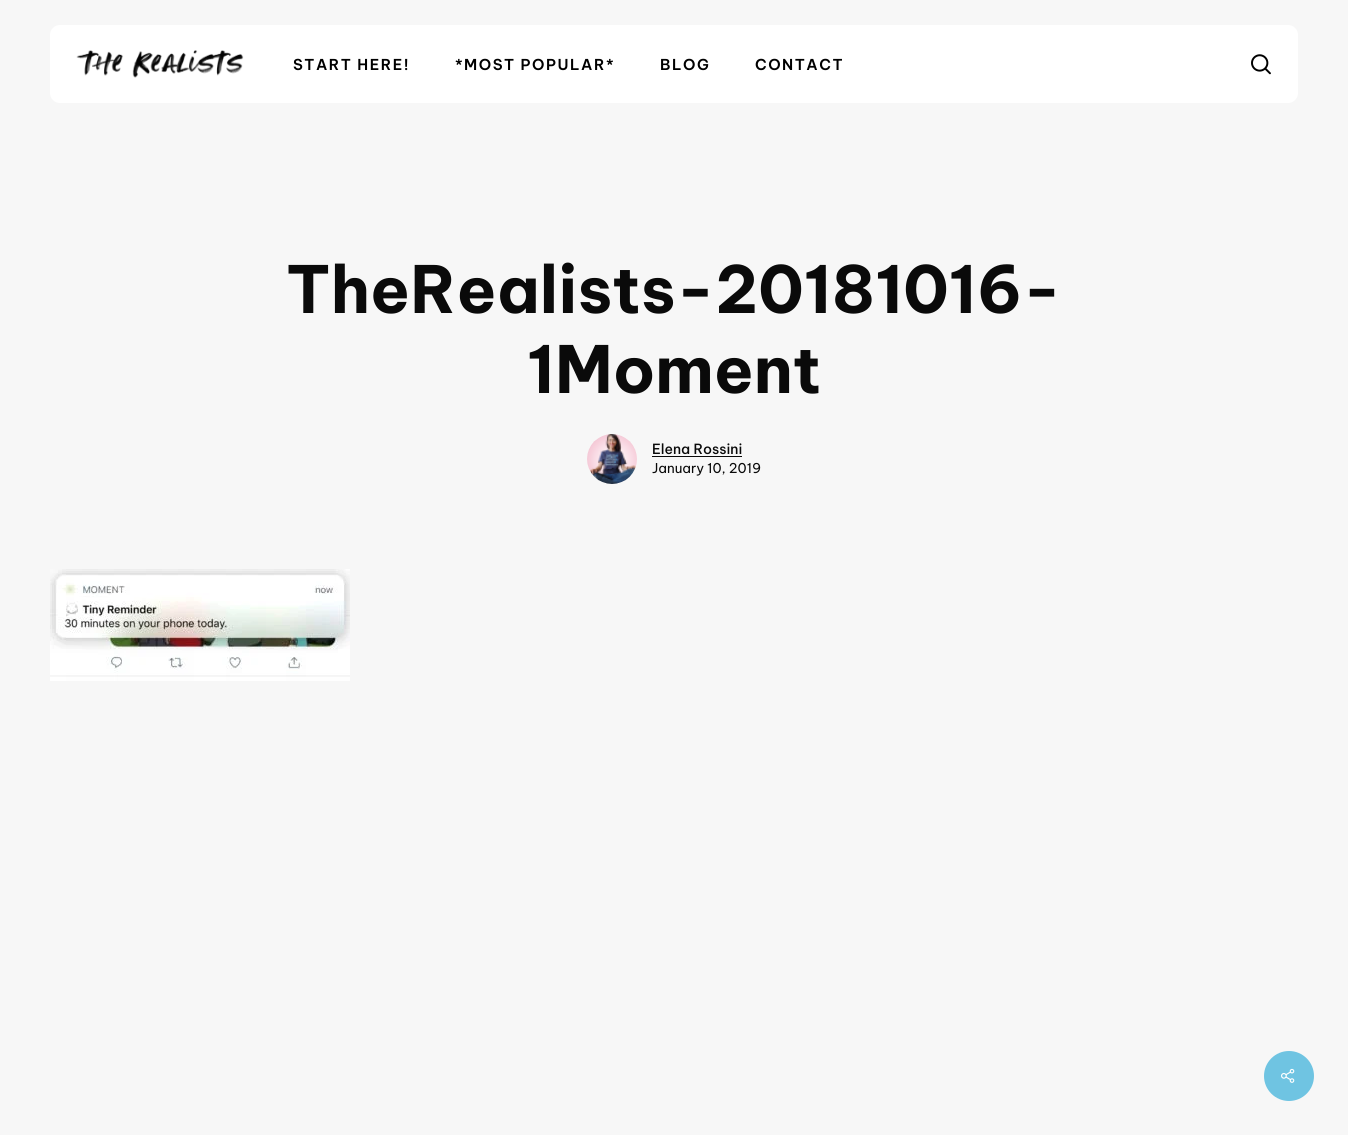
#include <cairo.h>
#include <math.h>
#include <stddef.h>

static cairo_t *c;
static void C(unsigned color){cairo_set_source_rgb(c, (color >> 16) / 255.0, (color >> 8 & 255) / 255.0, (color & 255) / 255.0);}
static void F(const char *family, double size, int italic, int bold){cairo_select_font_face(c, family, italic ? CAIRO_FONT_SLANT_ITALIC : CAIRO_FONT_SLANT_NORMAL,bold ? CAIRO_FONT_WEIGHT_BOLD : CAIRO_FONT_WEIGHT_NORMAL);cairo_set_font_size(c, size);}
static void T(double x, double y, const char *s){cairo_move_to(c, x, y);cairo_show_text(c, s);}
static void L(double x, double y, const char *s, double letter, double word){cairo_move_to(c, x, y);while (*s) {char ch[5] = {0};int n = 0;do ch[n++] = *s++; while ((*s & 0xC0) == 0x80);cairo_show_text(c, ch);cairo_rel_move_to(c, letter + word * (*ch == ' '), 0);}}
static void R(double x, double y, double w, double h){cairo_rectangle(c, x, y, w, h);cairo_fill(c);}
static void Q(double x, double y, double w, double h, double r){cairo_new_sub_path(c);cairo_arc(c, x + w - r, y + h - r, r, 0, M_PI / 2);cairo_arc(c, x + r, y + h - r, r, M_PI / 2, M_PI);cairo_arc(c, x + r, y + r, r, M_PI, 1.5 * M_PI);cairo_arc(c, x + w - r, y + r, r, 1.5 * M_PI, 2 * M_PI);cairo_close_path(c);}
static void I(const char *path, double x, double y, double w, double h){cairo_surface_t *image = cairo_image_surface_create_from_png(path);cairo_save(c);cairo_set_source_surface(c, image, x, y);cairo_rectangle(c, x, y, w, h);cairo_fill(c);cairo_restore(c);cairo_surface_destroy(image);}
int main(void) {
cairo_surface_t *surface = cairo_image_surface_create(CAIRO_FORMAT_RGB24, 1348, 1135);
c = cairo_create(surface);
cairo_font_options_t *options = cairo_font_options_create();
cairo_font_options_set_hint_metrics(options, CAIRO_HINT_METRICS_OFF);
cairo_font_options_set_hint_style(options, CAIRO_HINT_STYLE_NONE);
cairo_set_font_options(c, options);
cairo_set_miter_limit(c, 4);
C(0xf7f7f7);
cairo_paint(c);
C(0xffffff);
Q(50,25,1248,78,10);
cairo_fill(c);
I("1.png",76,50,168,28);
F("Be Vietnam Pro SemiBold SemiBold",15,0,0);
C(0x000000);
L(293,70,"START HERE!",1.5,0);
L(455,70,"*MOST POPULAR*",1.5,0);
L(660,70,"BLOG",1.5,0);
L(755,70,"CONTACT",1.5,0);
I("2.png",1251,54,20,21);
F("Be Vietnam Pro",65,0,1);
C(0x0a0a0a);
T(286,313,"TheRealists-20181016-");
T(527,393,"1Moment");
I("3.png",587,434,50,50);
F("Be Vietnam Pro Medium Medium",14,0,0);
T(652,454,"Elena Rossini");
R(652,456,90,1);
F("Be Vietnam Pro",13.5,0,0);
T(652,473,"January 10, 2019");
I("4.png",50,569,300,112);
C(0x6fc4e2);
cairo_arc(c,1289,1076,25,0,2 * M_PI);
cairo_fill(c);
I("5.png",1281,1068,14,15);
cairo_surface_write_to_png(surface, "o.png");
cairo_font_options_destroy(options);
cairo_destroy(c);
cairo_surface_destroy(surface);
return 0;
}
